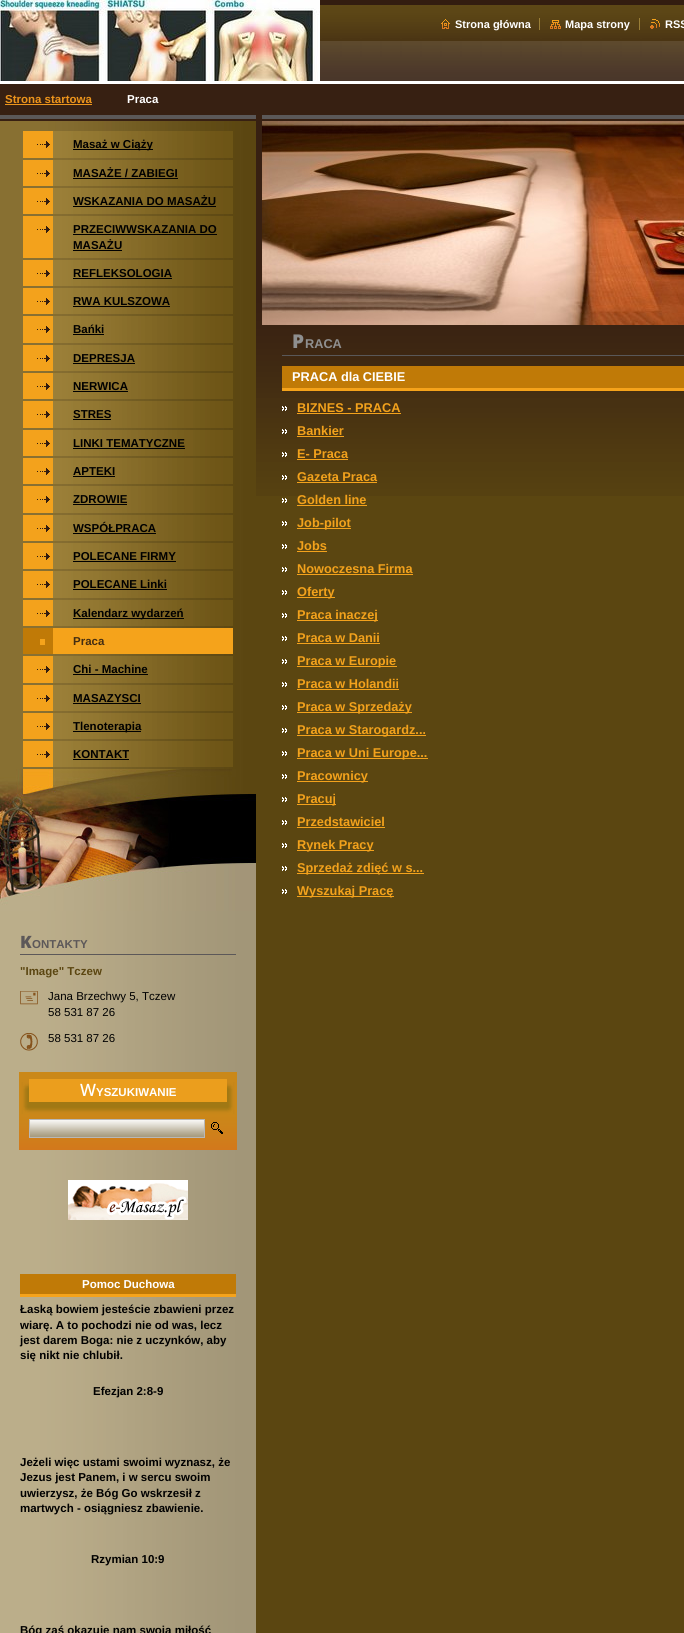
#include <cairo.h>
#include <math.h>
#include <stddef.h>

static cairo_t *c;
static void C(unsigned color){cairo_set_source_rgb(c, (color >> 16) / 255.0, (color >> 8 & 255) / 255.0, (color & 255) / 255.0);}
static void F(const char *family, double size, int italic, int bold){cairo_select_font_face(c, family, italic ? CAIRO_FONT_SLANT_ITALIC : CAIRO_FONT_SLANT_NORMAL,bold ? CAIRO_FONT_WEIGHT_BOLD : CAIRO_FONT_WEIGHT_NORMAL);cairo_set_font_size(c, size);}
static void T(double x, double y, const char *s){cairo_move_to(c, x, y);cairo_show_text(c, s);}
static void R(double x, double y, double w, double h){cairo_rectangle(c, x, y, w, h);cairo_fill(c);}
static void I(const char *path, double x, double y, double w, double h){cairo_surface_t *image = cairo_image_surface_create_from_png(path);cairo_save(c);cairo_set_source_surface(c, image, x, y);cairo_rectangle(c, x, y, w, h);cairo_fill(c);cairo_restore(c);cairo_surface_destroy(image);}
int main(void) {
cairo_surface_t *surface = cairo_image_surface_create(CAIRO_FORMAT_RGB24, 684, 1633);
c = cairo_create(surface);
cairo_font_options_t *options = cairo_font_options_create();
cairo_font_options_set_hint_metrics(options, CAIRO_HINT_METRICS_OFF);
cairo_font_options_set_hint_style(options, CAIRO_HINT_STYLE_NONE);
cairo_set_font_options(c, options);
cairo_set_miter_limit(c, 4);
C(0x5b4611);
cairo_paint(c);
I("1.png",256,115,428,381);
I("2.png",0,911,256,722);
I("3.png",320,0,364,81);
C(0xffffff);
R(0,81,684,3);
I("4.png",0,0,320,81);
I("5.png",441,19,9,10);
F("Liberation Sans",11,0,1);
T(455,28,"Strona główna");
I("6.png",550,20,11,9);
T(565,28,"Mapa strony");
C(0x9a7e37);
R(539,18,1,12);
I("7.png",650,19,10,10);
C(0xffffff);
T(665,28,"RSS");
C(0x9a7e37);
R(639,18,1,12);
C(0x372012);
R(0,84,684,29);
F("Liberation Sans",11.5,0,1);
C(0xed951c);
T(5,103,"Strona startowa");
R(5,104,87,1);
C(0xffffff);
T(127,103,"Praca");
C(0x372012);
R(0,113,684,2);
I("8.png",0,115,256,6);
I("9.png",0,121,256,648);
I("10.png",23,131,210,27);
I("11.png",37,141,13,7);
C(0x000000);
R(73,149,80,1);
T(73,148,"Masaż w Ciąży");
I("12.png",23,160,210,26);
I("11.png",37,170,13,7);
T(73,177,"MASAŻE / ZABIEGI");
R(73,178,105,1);
I("12.png",23,188,210,26);
I("11.png",37,198,13,7);
T(73,205,"WSKAZANIA DO MASAŻU");
R(73,206,143,1);
I("13.png",23,216,210,42);
I("11.png",37,226,13,7);
T(73,233,"PRZECIWWSKAZANIA DO");
R(73,234,144,1);
T(73,249,"MASAŻU");
R(73,250,49,1);
I("12.png",23,260,210,26);
I("11.png",37,270,13,7);
T(73,277,"REFLEKSOLOGIA");
R(73,278,99,1);
I("12.png",23,288,210,26);
I("11.png",37,298,13,7);
T(73,305,"RWA KULSZOWA");
R(73,306,97,1);
I("10.png",23,316,210,27);
I("11.png",37,326,13,7);
T(73,333,"Bańki");
R(73,334,31,1);
I("12.png",23,345,210,26);
I("11.png",37,355,13,7);
T(73,362,"DEPRESJA");
R(73,363,62,1);
I("12.png",23,373,210,26);
I("11.png",37,383,13,7);
T(73,390,"NERWICA");
R(73,391,55,1);
I("10.png",23,401,210,27);
I("11.png",37,411,13,7);
T(73,418,"STRES");
R(73,419,38,1);
I("12.png",23,430,210,26);
I("11.png",37,440,13,7);
T(73,447,"LINKI TEMATYCZNE");
R(73,448,112,1);
I("12.png",23,458,210,26);
I("11.png",37,468,13,7);
T(73,475,"APTEKI");
R(73,476,42,1);
I("10.png",23,486,210,27);
I("11.png",37,496,13,7);
T(73,503,"ZDROWIE");
R(73,504,54,1);
I("12.png",23,515,210,26);
I("11.png",37,525,13,7);
T(73,532,"WSPÓŁPRACA");
R(73,533,83,1);
I("12.png",23,543,210,26);
I("11.png",37,553,13,7);
T(73,560,"POLECANE FIRMY");
R(73,561,103,1);
I("10.png",23,571,210,27);
I("11.png",37,581,13,7);
T(73,588,"POLECANE Linki");
R(73,589,94,1);
I("12.png",23,600,210,26);
I("11.png",37,610,13,7);
R(73,618,111,1);
T(73,617,"Kalendarz wydarzeń");
I("14.png",23,628,210,26);
C(0xf5a31b);
R(40,639,5,6);
C(0x442e12);
T(73,645,"Praca");
I("10.png",23,656,210,27);
I("11.png",37,666,13,7);
C(0x000000);
T(73,673,"Chi - Machine");
R(73,674,75,1);
I("12.png",23,685,210,26);
I("11.png",37,695,13,7);
T(73,702,"MASAZYSCI");
R(73,703,68,1);
I("12.png",23,713,210,26);
I("11.png",37,723,13,7);
R(73,731,68,1);
T(73,730,"Tlenoterapia");
I("12.png",23,741,210,26);
I("11.png",37,751,13,7);
T(73,758,"KONTAKT");
R(73,759,56,1);
I("15.png",0,769,256,142);
C(0x5c5859);
R(20,954,216,1);
F("Noto Sans Black",17,0,0);
T(20,948,"K");
F("Liberation Sans",11.5,0,1);
T(32,948,"ONTAKTY");
C(0x5b4611);
T(20,975,"\"Image\" Tczew");
I("16.png",20,991,18,14);
F("Liberation Sans",11.5,0,0);
C(0x000000);
T(48,1000,"Jana Brzechwy 5, Tczew");
T(48,1016,"58 531 87 26");
I("17.png",20,1033,18,18);
T(48,1042,"58 531 87 26");
I("18.png",19,1072,218,78);
C(0xa07814);
R(29,1102,198,5);
I("19.png",19,1082,218,32);
I("20.png",23,1082,210,7);
C(0xeb9e1d);
R(29,1079,198,23);
F("Noto Sans Medium",17,0,0);
C(0xffffff);
T(80,1096,"W");
F("Liberation Sans",11.5,0,1);
T(96,1096,"YSZUKIWANIE");
I("21.png",23,1107,210,7);
I("22.png",30,1120,174,17);
cairo_rectangle(c,29.5,1119.5,175,18);
C(0xb8b8b8);
cairo_set_line_width(c,1);
cairo_stroke(c);
I("23.png",211,1122,12,12);
I("24.png",68,1180,120,40);
C(0xc07a07);
R(20,1274,216,20);
C(0xf5a31b);
R(20,1294,216,3);
C(0xffffff);
T(82,1288,"Pomoc Duchowa");
C(0x000000);
T(20,1313,"Łaską bowiem jesteście zbawieni przez");
T(20,1329,"wiarę. A to pochodzi nie od was, lecz");
T(20,1344,"jest darem Boga: nie z uczynków, aby");
T(20,1359,"się nikt nie chlubił.");
T(93,1395,"Efezjan 2:8-9");
T(20,1466,"Jeżeli więc ustami swoimi wyznasz, że");
T(20,1481,"Jezus jest Panem, i w sercu swoim");
T(20,1497,"uwierzysz, że Bóg Go wskrzesił z");
T(20,1512,"martwych - osiągniesz zbawienie.");
T(91,1563,"Rzymian 10:9");
T(20,1634,"Bóg zaś okazuje nam swoją miłość");
C(0x5b5858);
R(262,115,422,4);
I("25.png",262,121,422,204);
C(0x5a5859);
R(282,355,402,1);
F("Noto Sans Black",19,0,0);
C(0x8f8f8f);
T(292,348,"P");
F("Liberation Sans",12.75,0,1);
T(305,348,"RACA");
C(0xc07a07);
R(282,366,402,22);
C(0xf5a31b);
R(282,388,402,3);
C(0xffffff);
T(292,381,"PRACA dla CIEBIE");
I("26.png",282,406,5,5);
C(0xf3a21c);
T(297,412,"BIZNES - PRACA");
R(297,413,104,1);
I("27.png",282,429,5,5);
T(297,435,"Bankier");
R(297,436,47,1);
I("28.png",282,452,5,5);
T(297,458,"E- Praca");
R(297,459,51,1);
I("29.png",282,475,5,5);
T(297,481,"Gazeta Praca");
R(297,482,80,1);
I("30.png",282,498,5,5);
T(297,504,"Golden line");
R(297,505,70,1);
I("30.png",282,521,5,5);
R(297,528,54,1);
T(297,527,"Job-pilot");
I("30.png",282,544,5,5);
T(297,550,"Jobs");
R(297,551,30,1);
I("30.png",282,567,5,5);
T(297,573,"Nowoczesna Firma");
R(297,574,116,1);
I("30.png",282,590,5,5);
R(297,597,38,1);
T(297,596,"Oferty");
I("30.png",282,613,5,5);
R(297,620,81,1);
T(297,619,"Praca inaczej");
I("30.png",282,636,5,5);
T(297,642,"Praca w Danii");
R(297,643,83,1);
I("30.png",282,659,5,5);
R(297,666,100,1);
T(297,665,"Praca w Europie");
I("30.png",282,682,5,5);
T(297,688,"Praca w Holandii");
R(297,689,102,1);
I("30.png",282,705,5,5);
R(297,712,115,1);
T(297,711,"Praca w Sprzedaży");
I("30.png",282,728,5,5);
R(297,735,129,1);
T(297,734,"Praca w Starogardz...");
I("30.png",282,751,5,5);
R(297,758,131,1);
T(297,757,"Praca w Uni Europe...");
I("30.png",282,774,5,5);
R(297,781,71,1);
T(297,780,"Pracownicy");
I("30.png",282,797,5,5);
R(297,804,39,1);
T(297,803,"Pracuj");
I("30.png",282,820,5,5);
T(297,826,"Przedstawiciel");
R(297,827,88,1);
I("30.png",282,843,5,5);
R(297,850,77,1);
T(297,849,"Rynek Pracy");
I("30.png",282,866,5,5);
R(297,873,127,1);
T(297,872,"Sprzedaż zdięć w s...");
I("30.png",282,889,5,5);
R(297,896,97,1);
T(297,895,"Wyszukaj Pracę");
cairo_surface_write_to_png(surface, "o.png");
cairo_font_options_destroy(options);
cairo_destroy(c);
cairo_surface_destroy(surface);
return 0;
}
